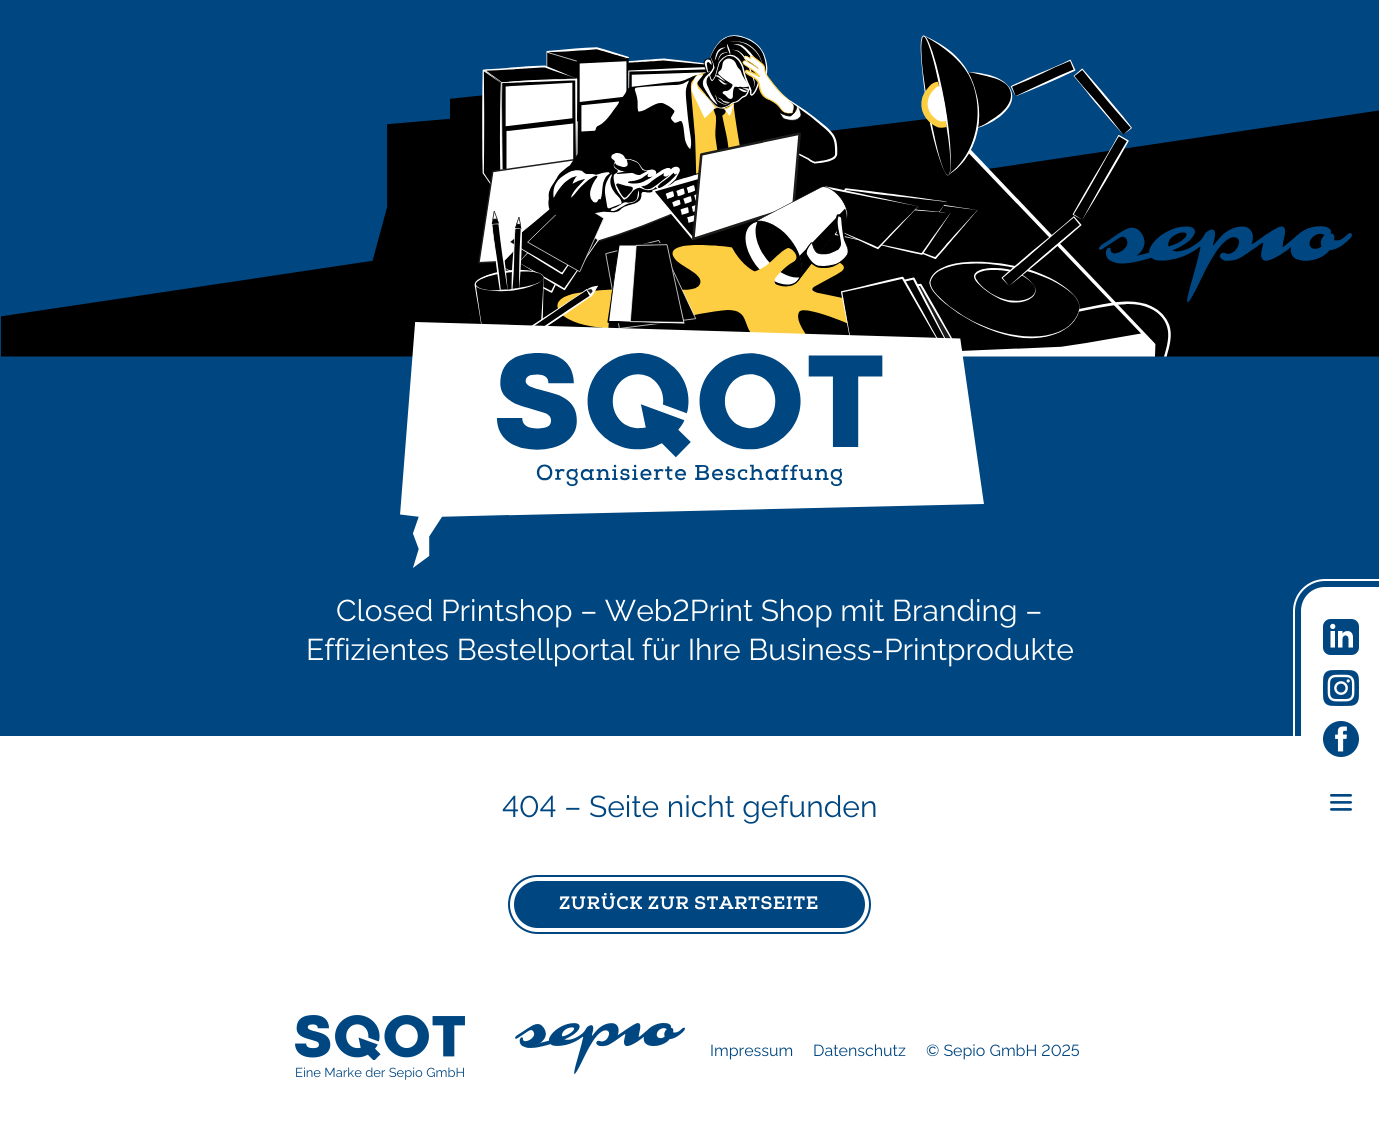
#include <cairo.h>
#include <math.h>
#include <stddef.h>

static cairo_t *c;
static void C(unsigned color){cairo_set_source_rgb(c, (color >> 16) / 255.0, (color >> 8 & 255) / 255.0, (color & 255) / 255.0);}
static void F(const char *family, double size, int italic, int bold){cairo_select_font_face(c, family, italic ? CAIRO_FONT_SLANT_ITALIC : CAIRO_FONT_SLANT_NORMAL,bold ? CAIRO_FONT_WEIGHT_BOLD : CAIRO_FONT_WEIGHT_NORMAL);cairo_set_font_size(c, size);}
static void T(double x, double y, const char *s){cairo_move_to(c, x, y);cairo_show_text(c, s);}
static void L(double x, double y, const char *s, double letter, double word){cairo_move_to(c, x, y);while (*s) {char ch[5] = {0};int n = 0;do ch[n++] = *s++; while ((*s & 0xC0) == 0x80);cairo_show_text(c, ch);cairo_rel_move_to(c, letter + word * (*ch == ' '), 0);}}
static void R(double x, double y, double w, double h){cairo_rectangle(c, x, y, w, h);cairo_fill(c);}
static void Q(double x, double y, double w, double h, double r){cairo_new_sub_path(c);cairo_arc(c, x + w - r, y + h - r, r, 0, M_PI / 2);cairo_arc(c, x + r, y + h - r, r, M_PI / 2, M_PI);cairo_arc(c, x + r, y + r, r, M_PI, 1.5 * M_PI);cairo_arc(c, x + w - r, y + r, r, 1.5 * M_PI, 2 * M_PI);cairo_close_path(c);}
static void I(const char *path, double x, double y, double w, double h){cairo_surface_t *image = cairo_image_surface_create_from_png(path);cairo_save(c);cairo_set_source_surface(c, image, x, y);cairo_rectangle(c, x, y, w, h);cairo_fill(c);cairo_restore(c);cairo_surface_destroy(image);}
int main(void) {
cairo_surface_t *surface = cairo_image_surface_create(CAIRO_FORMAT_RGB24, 1379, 1134);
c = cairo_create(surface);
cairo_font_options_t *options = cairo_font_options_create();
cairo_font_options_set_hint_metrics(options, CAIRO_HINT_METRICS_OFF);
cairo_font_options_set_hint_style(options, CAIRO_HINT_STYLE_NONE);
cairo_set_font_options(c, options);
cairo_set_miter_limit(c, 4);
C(0xffffff);
cairo_paint(c);
C(0x004680);
R(0,0,1379,736);
I("1.png",0,35,1379,533);
F("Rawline",30,0,0);
C(0xffffff);
T(336,621,"Closed Printshop – Web2Print Shop mit Branding –");
T(306,660,"Effizientes Bestellportal für Ihre Business-Printprodukte");
cairo_new_path(c);
cairo_move_to(c,1325,580);
cairo_line_to(c,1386,580);
cairo_line_to(c,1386,852);
cairo_line_to(c,1325,852);
cairo_curve_to(c,1308,852,1294,838,1294,821);
cairo_line_to(c,1294,611);
cairo_curve_to(c,1294,594,1308,580,1325,580);
cairo_close_path(c);
cairo_stroke(c);
cairo_new_path(c);
cairo_move_to(c,1325,587);
cairo_line_to(c,1379,587);
cairo_line_to(c,1379,845);
cairo_line_to(c,1325,845);
cairo_curve_to(c,1311.5,845,1301,834.5,1301,821);
cairo_line_to(c,1301,611);
cairo_curve_to(c,1301,597.5,1311.5,587,1325,587);
cairo_close_path(c);
cairo_fill(c);
I("2.png",1323,619,36,36);
I("3.png",1323,670,36,36);
I("4.png",1323,721,36,36);
I("5.png",1330,794,22,17);
C(0x004680);
T(502,817,"404 – Seite nicht gefunden");
Q(509,876,361,57,28.5);
cairo_stroke(c);
Q(514,881,351,47,23.5);
cairo_fill(c);
F("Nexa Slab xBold",18,0,1);
C(0xffffff);
L(559,909,"ZURÜCK ZUR STARTSEITE",.5,0);
I("6.png",515,1023,170,51);
F("Rawline",16,0,0);
C(0x004680);
T(710,1056,"Impressum");
T(813,1056,"Datenschutz");
T(926,1056,"© Sepio GmbH 2025");
I("7.png",295,1015,170,45);
F("Rawline",13,0,0);
T(295,1077,"Eine Marke der Sepio GmbH");
cairo_surface_write_to_png(surface, "o.png");
cairo_font_options_destroy(options);
cairo_destroy(c);
cairo_surface_destroy(surface);
return 0;
}
